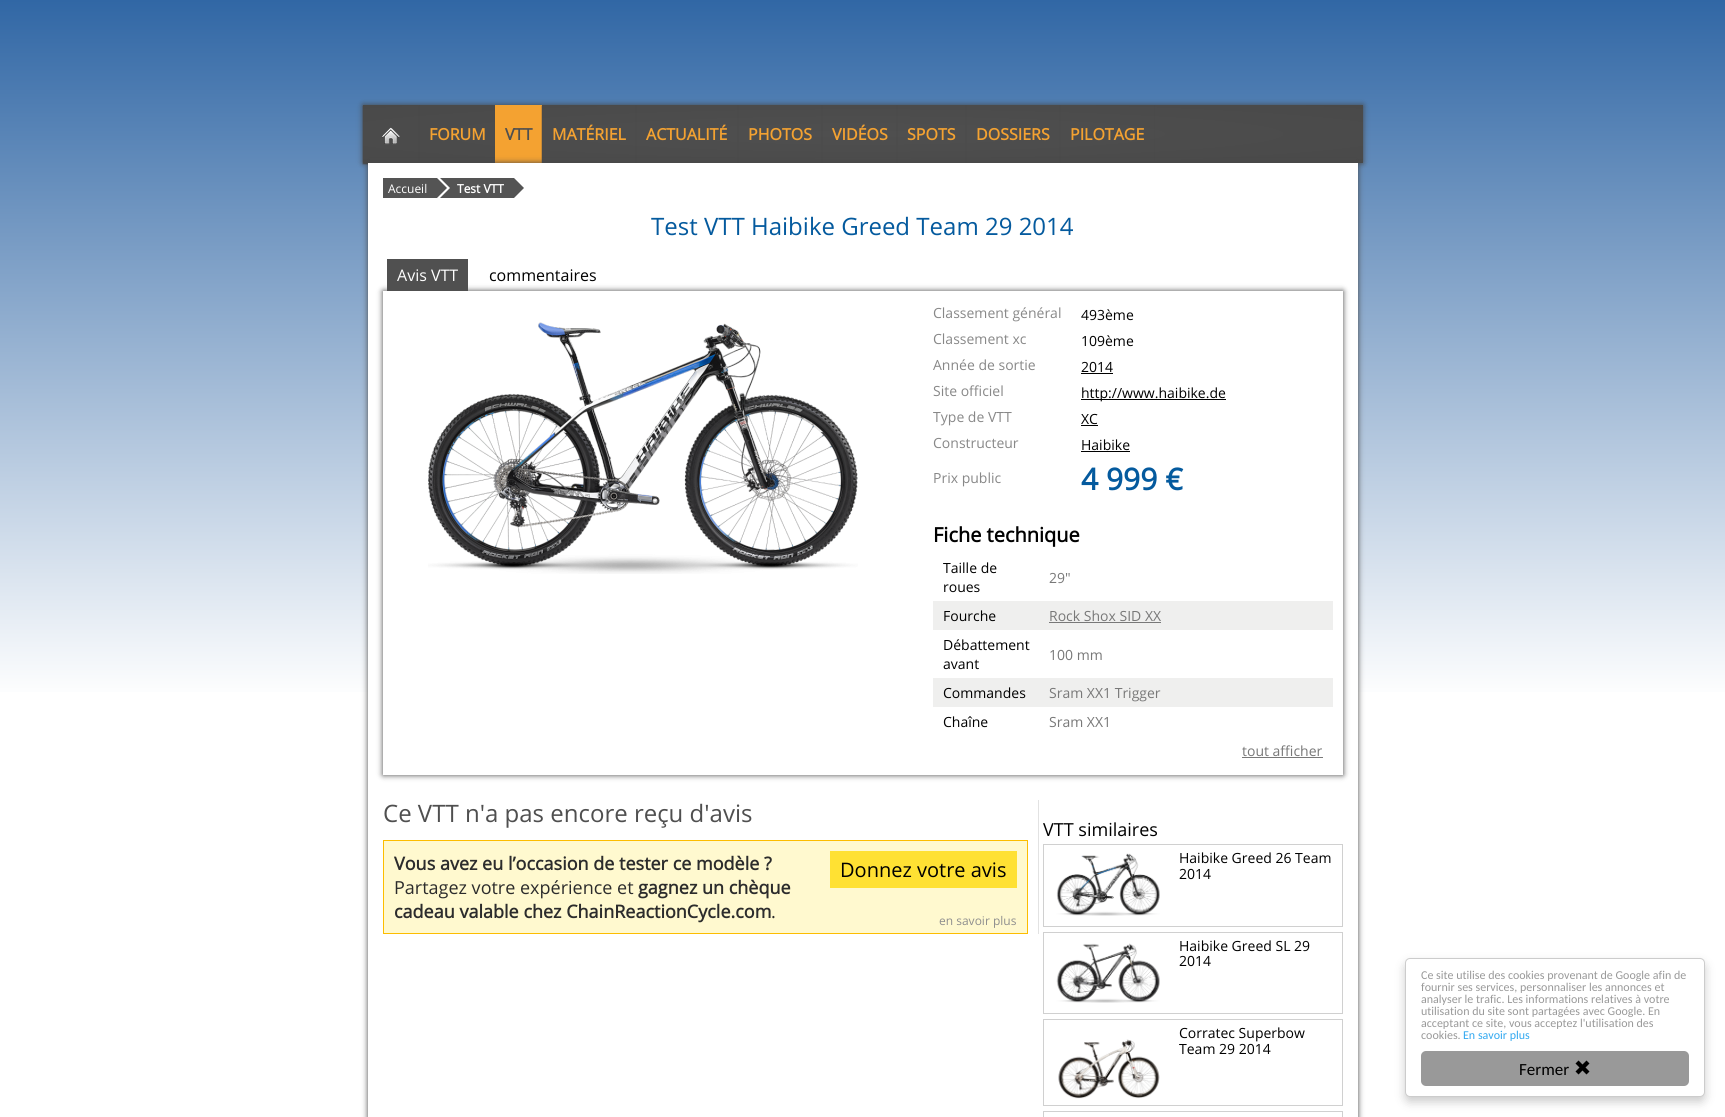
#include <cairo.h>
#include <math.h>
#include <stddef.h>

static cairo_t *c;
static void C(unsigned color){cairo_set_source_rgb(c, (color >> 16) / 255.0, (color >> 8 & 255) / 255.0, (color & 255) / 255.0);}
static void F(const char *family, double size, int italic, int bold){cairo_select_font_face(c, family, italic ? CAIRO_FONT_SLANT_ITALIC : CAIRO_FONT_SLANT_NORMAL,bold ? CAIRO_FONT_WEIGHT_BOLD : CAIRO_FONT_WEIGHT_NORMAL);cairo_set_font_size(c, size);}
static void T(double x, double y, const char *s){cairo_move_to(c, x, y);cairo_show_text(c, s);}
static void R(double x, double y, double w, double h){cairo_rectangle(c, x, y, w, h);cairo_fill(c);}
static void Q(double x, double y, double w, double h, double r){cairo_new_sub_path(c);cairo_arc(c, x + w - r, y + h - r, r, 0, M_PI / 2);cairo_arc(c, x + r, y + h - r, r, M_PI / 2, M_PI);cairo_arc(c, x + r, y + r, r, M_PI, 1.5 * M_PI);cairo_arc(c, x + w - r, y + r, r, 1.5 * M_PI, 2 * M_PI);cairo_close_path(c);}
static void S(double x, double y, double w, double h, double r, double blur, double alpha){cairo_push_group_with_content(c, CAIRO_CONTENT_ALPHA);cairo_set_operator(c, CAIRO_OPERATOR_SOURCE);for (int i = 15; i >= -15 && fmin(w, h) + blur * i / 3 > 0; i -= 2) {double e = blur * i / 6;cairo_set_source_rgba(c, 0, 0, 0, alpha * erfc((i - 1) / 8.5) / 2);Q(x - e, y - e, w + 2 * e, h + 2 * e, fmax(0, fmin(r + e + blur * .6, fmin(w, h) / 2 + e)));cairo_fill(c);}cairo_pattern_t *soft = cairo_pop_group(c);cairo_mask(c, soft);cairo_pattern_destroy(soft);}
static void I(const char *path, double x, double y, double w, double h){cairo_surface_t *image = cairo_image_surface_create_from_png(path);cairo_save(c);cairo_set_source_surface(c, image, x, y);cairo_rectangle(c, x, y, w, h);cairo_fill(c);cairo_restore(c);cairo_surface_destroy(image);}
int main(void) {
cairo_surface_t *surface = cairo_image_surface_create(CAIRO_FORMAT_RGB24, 1725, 1117);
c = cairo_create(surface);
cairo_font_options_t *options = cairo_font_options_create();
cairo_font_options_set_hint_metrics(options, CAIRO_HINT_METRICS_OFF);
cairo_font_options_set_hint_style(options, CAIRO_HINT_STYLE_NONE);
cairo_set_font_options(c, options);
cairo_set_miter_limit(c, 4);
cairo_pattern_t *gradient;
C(0xffffff);
cairo_paint(c);
gradient = cairo_pattern_create_linear(863,0,863,700);
cairo_pattern_add_color_stop_rgba(gradient,0,0.192,0.404,0.647,1);
cairo_pattern_add_color_stop_rgba(gradient,1,1,1,1,1);
cairo_set_source(c,gradient);
cairo_pattern_destroy(gradient);
R(0,0,1725,692);
C(0x464646);
S(363,105,1000,58,0,3,1);
gradient = cairo_pattern_create_radial(0,0,0,0,0,1);
cairo_pattern_set_matrix(gradient, &(cairo_matrix_t){1.0 / 1061, 0, 0, 1.0 / 62, -1.0 * 863 / 1061, -1.0 * 134 / 62});
cairo_pattern_add_color_stop_rgba(gradient,0,0.31,0.31,0.31,1);
cairo_pattern_add_color_stop_rgba(gradient,1,0.275,0.275,0.275,1);
cairo_set_source(c,gradient);
cairo_pattern_destroy(gradient);
R(363,105,1000,58);
cairo_save(c);
cairo_set_fill_rule(c,CAIRO_FILL_RULE_EVEN_ODD);
cairo_new_path(c);
cairo_move_to(c,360,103);
cairo_line_to(c,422,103);
cairo_line_to(c,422,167);
cairo_line_to(c,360,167);
cairo_close_path(c);
cairo_move_to(c,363,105);
cairo_line_to(c,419,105);
cairo_line_to(c,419,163);
cairo_line_to(c,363,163);
cairo_close_path(c);
cairo_clip(c);
C(0x464646);
S(363,106,56,58,0,.5,1);
cairo_restore(c);
I("1.png",382,127,18,18);
cairo_save(c);
cairo_rectangle(c,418,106,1,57);
cairo_clip(c);
C(0x464646);
S(419,106,76,58,0,.5,1);
cairo_restore(c);
F("Open Sans",16,0,1);
C(0xf4a231);
T(429,140,"FORUM");
C(0x464646);
S(495,106,47,58,0,.5,1);
C(0xf4a231);
R(495,105,47,58);
C(0x4f4f4f);
T(505,140,"VTT");
cairo_save(c);
cairo_set_fill_rule(c,CAIRO_FILL_RULE_EVEN_ODD);
cairo_new_path(c);
cairo_move_to(c,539,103);
cairo_line_to(c,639,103);
cairo_line_to(c,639,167);
cairo_line_to(c,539,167);
cairo_close_path(c);
cairo_move_to(c,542,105);
cairo_line_to(c,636,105);
cairo_line_to(c,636,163);
cairo_line_to(c,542,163);
cairo_close_path(c);
cairo_clip(c);
C(0x464646);
S(542,106,94,58,0,.5,1);
cairo_restore(c);
C(0xf4a231);
T(552,140,"MATÉRIEL");
cairo_save(c);
cairo_set_fill_rule(c,CAIRO_FILL_RULE_EVEN_ODD);
cairo_new_path(c);
cairo_move_to(c,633,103);
cairo_line_to(c,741,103);
cairo_line_to(c,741,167);
cairo_line_to(c,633,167);
cairo_close_path(c);
cairo_move_to(c,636,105);
cairo_line_to(c,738,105);
cairo_line_to(c,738,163);
cairo_line_to(c,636,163);
cairo_close_path(c);
cairo_clip(c);
C(0x464646);
S(636,106,102,58,0,.5,1);
cairo_restore(c);
T(646,140,"ACTUALITÉ");
cairo_save(c);
cairo_set_fill_rule(c,CAIRO_FILL_RULE_EVEN_ODD);
cairo_new_path(c);
cairo_move_to(c,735,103);
cairo_line_to(c,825,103);
cairo_line_to(c,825,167);
cairo_line_to(c,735,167);
cairo_close_path(c);
cairo_move_to(c,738,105);
cairo_line_to(c,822,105);
cairo_line_to(c,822,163);
cairo_line_to(c,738,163);
cairo_close_path(c);
cairo_clip(c);
C(0x464646);
S(738,106,84,58,0,.5,1);
cairo_restore(c);
T(748,140,"PHOTOS");
cairo_save(c);
cairo_set_fill_rule(c,CAIRO_FILL_RULE_EVEN_ODD);
cairo_new_path(c);
cairo_move_to(c,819,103);
cairo_line_to(c,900,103);
cairo_line_to(c,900,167);
cairo_line_to(c,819,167);
cairo_close_path(c);
cairo_move_to(c,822,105);
cairo_line_to(c,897,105);
cairo_line_to(c,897,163);
cairo_line_to(c,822,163);
cairo_close_path(c);
cairo_clip(c);
C(0x464646);
S(822,106,75,58,0,.5,1);
cairo_restore(c);
T(832,140,"VIDÉOS");
cairo_save(c);
cairo_set_fill_rule(c,CAIRO_FILL_RULE_EVEN_ODD);
cairo_new_path(c);
cairo_move_to(c,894,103);
cairo_line_to(c,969,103);
cairo_line_to(c,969,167);
cairo_line_to(c,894,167);
cairo_close_path(c);
cairo_move_to(c,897,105);
cairo_line_to(c,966,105);
cairo_line_to(c,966,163);
cairo_line_to(c,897,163);
cairo_close_path(c);
cairo_clip(c);
C(0x464646);
S(897,106,69,58,0,.5,1);
cairo_restore(c);
T(907,140,"SPOTS");
cairo_save(c);
cairo_set_fill_rule(c,CAIRO_FILL_RULE_EVEN_ODD);
cairo_new_path(c);
cairo_move_to(c,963,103);
cairo_line_to(c,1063,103);
cairo_line_to(c,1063,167);
cairo_line_to(c,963,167);
cairo_close_path(c);
cairo_move_to(c,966,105);
cairo_line_to(c,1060,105);
cairo_line_to(c,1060,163);
cairo_line_to(c,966,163);
cairo_close_path(c);
cairo_clip(c);
C(0x464646);
S(966,106,94,58,0,.5,1);
cairo_restore(c);
T(976,140,"DOSSIERS");
cairo_save(c);
cairo_set_fill_rule(c,CAIRO_FILL_RULE_EVEN_ODD);
cairo_new_path(c);
cairo_move_to(c,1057,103);
cairo_line_to(c,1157,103);
cairo_line_to(c,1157,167);
cairo_line_to(c,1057,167);
cairo_close_path(c);
cairo_move_to(c,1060,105);
cairo_line_to(c,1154,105);
cairo_line_to(c,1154,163);
cairo_line_to(c,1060,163);
cairo_close_path(c);
cairo_clip(c);
C(0x464646);
S(1060,106,94,58,0,.5,1);
cairo_restore(c);
T(1070,140,"PILOTAGE");
C(0x464646);
S(368,163,990,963,0,3,1);
C(0xffffff);
R(368,163,990,954);
C(0x545454);
R(383,178,121,20);
cairo_save(c);
cairo_rectangle(c,383,178,69,20);
cairo_clip(c);
C(0xffffff);
cairo_new_path(c);
cairo_move_to(c,430,208);
cairo_line_to(c,430,168);
cairo_line_to(c,450,188);
cairo_close_path(c);
cairo_fill(c);
C(0x545454);
cairo_new_path(c);
cairo_move_to(c,427,208);
cairo_line_to(c,427,168);
cairo_line_to(c,447,188);
cairo_close_path(c);
cairo_fill(c);
cairo_restore(c);
F("Open Sans",12,0,0);
C(0xffffff);
T(388,193,"Accueil");
F("Open Sans",12,0,1);
T(457,193,"Test VTT");
cairo_save(c);
cairo_rectangle(c,452,178,77,20);
cairo_clip(c);
C(0x545454);
cairo_new_path(c);
cairo_move_to(c,504,208);
cairo_line_to(c,504,168);
cairo_line_to(c,524,188);
cairo_close_path(c);
cairo_fill(c);
cairo_restore(c);
F("Open Sans",24,0,0);
C(0x045a9e);
T(651,235,"Test VTT Haibike Greed Team 29 2014");
cairo_save(c);
cairo_set_fill_rule(c,CAIRO_FILL_RULE_EVEN_ODD);
cairo_new_path(c);
cairo_move_to(c,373,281);
cairo_line_to(c,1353,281);
cairo_line_to(c,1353,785);
cairo_line_to(c,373,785);
cairo_close_path(c);
cairo_move_to(c,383,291);
cairo_line_to(c,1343,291);
cairo_line_to(c,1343,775);
cairo_line_to(c,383,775);
cairo_close_path(c);
cairo_clip(c);
C(0x464646);
S(383,291,960,484,0,3,1);
cairo_restore(c);
C(0x505050);
R(387,259,81,32);
F("Open Sans",16,0,0);
C(0xffffff);
T(397,281,"Avis VTT");
C(0x000000);
T(489,281,"commentaires");
I("2.png",428,322,430,252);
F("Open Sans",14,0,0);
C(0x888888);
T(933,318,"Classement général");
C(0x000000);
T(1081,320,"493ème");
C(0x888888);
T(933,344,"Classement xc");
C(0x000000);
T(1081,346,"109ème");
C(0x888888);
T(933,370,"Année de sortie");
C(0x000000);
T(1081,372,"2014");
R(1081,373,32,1);
C(0x888888);
T(933,396,"Site officiel");
C(0x000000);
R(1081,399,145,1);
T(1081,398,"http://www.haibike.de");
C(0x888888);
T(933,422,"Type de VTT");
C(0x000000);
T(1081,424,"XC");
R(1081,425,17,1);
C(0x888888);
T(933,448,"Constructeur");
C(0x000000);
T(1081,450,"Haibike");
R(1081,451,49,1);
C(0x888888);
T(933,483,"Prix public");
F("Open Sans",30,0,1);
C(0x045a9e);
T(1081,490,"4 999 €");
F("Open Sans",20,0,1);
C(0x000000);
T(933,542,"Fiche technique");
F("Open Sans",14,0,0);
T(943,573,"Taille de");
T(943,592,"roues");
C(0x787878);
T(1049,583,"29\"");
C(0xefefee);
R(933,601,400,29);
C(0x000000);
T(943,621,"Fourche");
C(0x787878);
T(1049,621,"Rock Shox SID XX");
R(1049,622,112,1);
C(0x000000);
T(943,650,"Débattement");
T(943,669,"avant");
C(0x787878);
T(1049,660,"100 mm");
C(0xefefee);
R(933,678,400,29);
C(0x000000);
T(943,698,"Commandes");
C(0x787878);
T(1049,698,"Sram XX1 Trigger");
C(0x000000);
T(943,727,"Chaîne");
C(0x787878);
T(1049,727,"Sram XX1");
T(1242,756,"tout afficher");
R(1242,757,81,1);
C(0xe2e2e2);
R(1038,800,1,134);
F("Open Sans",24,0,0);
C(0x4f4f4f);
T(383,822,"Ce VTT n'a pas encore reçu d'avis");
C(0xfff9cf);
cairo_rectangle(c,383.5,840.5,644,93);
cairo_fill_preserve(c);
C(0xfdbd00);
cairo_set_line_width(c,1);
cairo_stroke(c);
F("Open Sans",18,0,1);
C(0x2c2c2c);
T(394,870,"Vous avez eu l’occasion de tester ce modèle ?");
F("Open Sans",18,0,0);
T(394,894,"Partagez votre expérience et");
F("Open Sans",18,0,1);
T(638,894,"gagnez un chèque");
T(394,918,"cadeau valable chez ChainReactionCycle.com");
F("Open Sans",18,0,0);
T(771,918,".");
C(0xffe133);
R(830,851,187,37);
F("Open Sans",20,0,0);
C(0x000000);
T(840,877,"Donnez votre avis");
F("Open Sans",12,0,0);
C(0x8e8e8e);
T(939,925,"en savoir plus");
F("Open Sans",18,0,0);
C(0x000000);
T(1043,836,"VTT similaires");
cairo_rectangle(c,1043.5,844.5,299,82);
C(0xd0d0d0);
cairo_stroke(c);
I("3.png",1056,853,104,63);
F("Open Sans",14,0,0);
C(0x000000);
T(1179,863,"Haibike Greed 26 Team");
T(1179,879,"2014");
cairo_rectangle(c,1043.5,932.5,299,81);
C(0xd0d0d0);
cairo_stroke(c);
I("4.png",1056,943,104,60);
C(0x000000);
T(1179,951,"Haibike Greed SL 29");
T(1179,966,"2014");
cairo_rectangle(c,1043.5,1019.5,299,86);
C(0xd0d0d0);
cairo_stroke(c);
I("5.png",1058,1039,102,60);
C(0x000000);
T(1179,1038,"Corratec Superbow");
T(1179,1054,"Team 29 2014");
cairo_rectangle(c,1043.5,1111.5,299,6);
C(0xd0d0d0);
cairo_stroke(c);
C(0x000000);
S(1405,963,300,139,5,5,.2);
C(0xffffff);
Q(1405.5,958.5,299,138,4.5);
cairo_fill_preserve(c);
C(0xcccccc);
cairo_stroke(c);
F("Carlito",12,0,0);
C(0x999999);
T(1421,979,"Ce site utilise des cookies provenant de Google afin de");
T(1421,991,"fournir ses services, personnaliser les annonces et");
T(1421,1003,"analyser le trafic. Les informations relatives à votre");
T(1421,1015,"utilisation du site sont partagées avec Google. En");
T(1421,1027,"acceptant ce site, vous acceptez l'utilisation des");
T(1421,1039,"cookies.");
C(0x31a8f0);
T(1463,1039,"En savoir plus");
C(0x999999);
Q(1421,1051,268,35,5);
cairo_fill(c);
F("Carlito",17,0,0);
C(0x000000);
T(1519,1075,"Fermer");
I("6.png",1575,1060,15,15);
cairo_surface_write_to_png(surface, "o.png");
cairo_font_options_destroy(options);
cairo_destroy(c);
cairo_surface_destroy(surface);
return 0;
}
